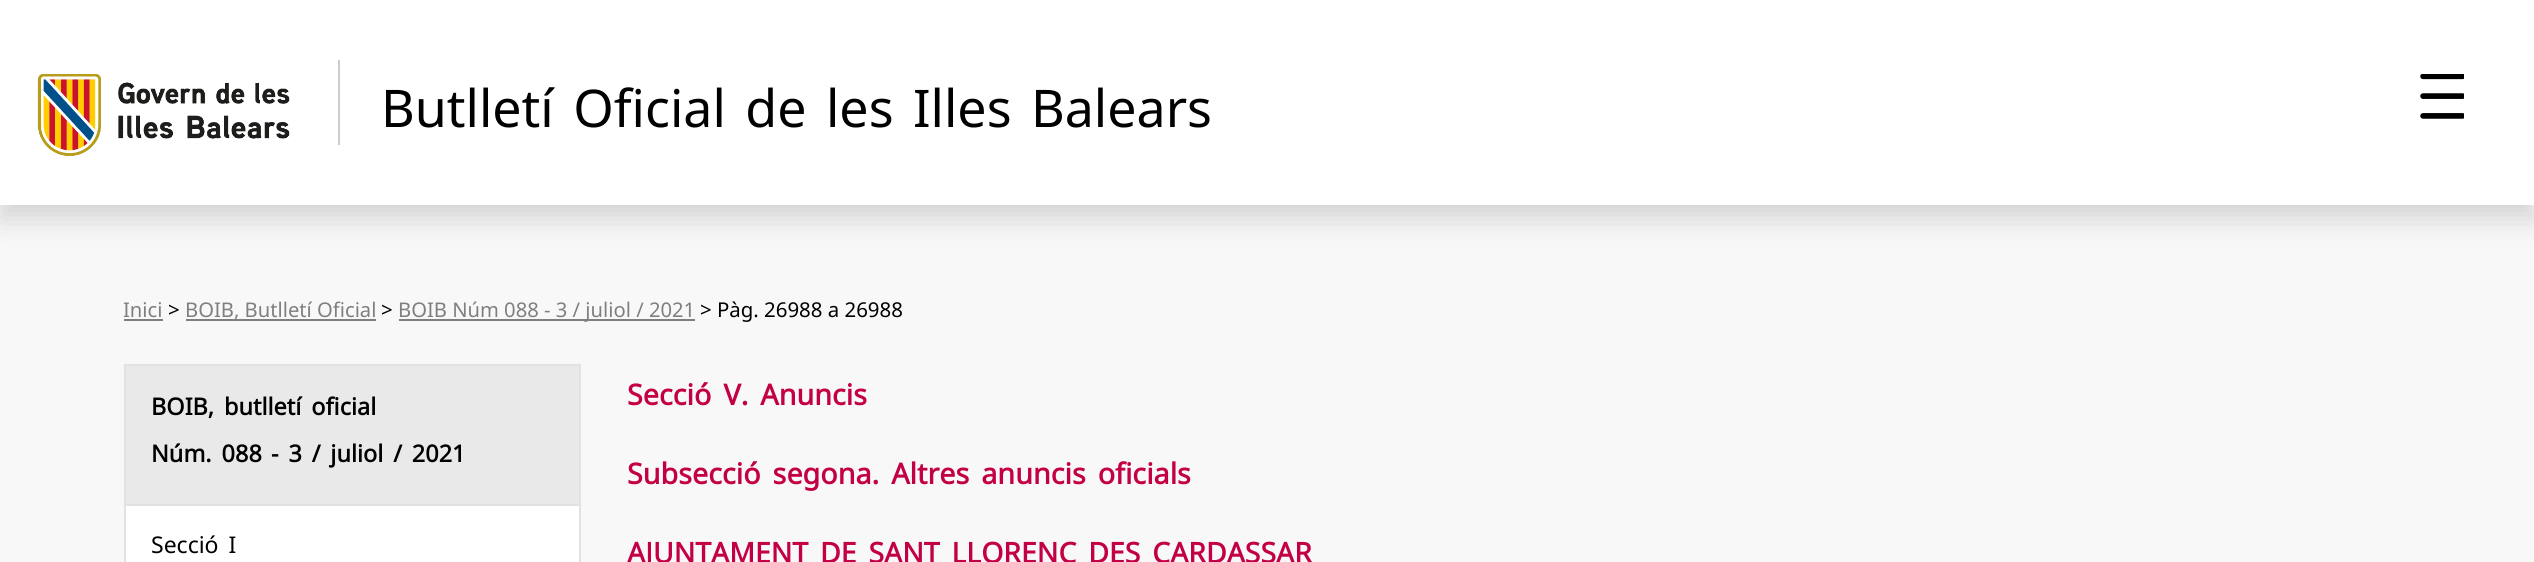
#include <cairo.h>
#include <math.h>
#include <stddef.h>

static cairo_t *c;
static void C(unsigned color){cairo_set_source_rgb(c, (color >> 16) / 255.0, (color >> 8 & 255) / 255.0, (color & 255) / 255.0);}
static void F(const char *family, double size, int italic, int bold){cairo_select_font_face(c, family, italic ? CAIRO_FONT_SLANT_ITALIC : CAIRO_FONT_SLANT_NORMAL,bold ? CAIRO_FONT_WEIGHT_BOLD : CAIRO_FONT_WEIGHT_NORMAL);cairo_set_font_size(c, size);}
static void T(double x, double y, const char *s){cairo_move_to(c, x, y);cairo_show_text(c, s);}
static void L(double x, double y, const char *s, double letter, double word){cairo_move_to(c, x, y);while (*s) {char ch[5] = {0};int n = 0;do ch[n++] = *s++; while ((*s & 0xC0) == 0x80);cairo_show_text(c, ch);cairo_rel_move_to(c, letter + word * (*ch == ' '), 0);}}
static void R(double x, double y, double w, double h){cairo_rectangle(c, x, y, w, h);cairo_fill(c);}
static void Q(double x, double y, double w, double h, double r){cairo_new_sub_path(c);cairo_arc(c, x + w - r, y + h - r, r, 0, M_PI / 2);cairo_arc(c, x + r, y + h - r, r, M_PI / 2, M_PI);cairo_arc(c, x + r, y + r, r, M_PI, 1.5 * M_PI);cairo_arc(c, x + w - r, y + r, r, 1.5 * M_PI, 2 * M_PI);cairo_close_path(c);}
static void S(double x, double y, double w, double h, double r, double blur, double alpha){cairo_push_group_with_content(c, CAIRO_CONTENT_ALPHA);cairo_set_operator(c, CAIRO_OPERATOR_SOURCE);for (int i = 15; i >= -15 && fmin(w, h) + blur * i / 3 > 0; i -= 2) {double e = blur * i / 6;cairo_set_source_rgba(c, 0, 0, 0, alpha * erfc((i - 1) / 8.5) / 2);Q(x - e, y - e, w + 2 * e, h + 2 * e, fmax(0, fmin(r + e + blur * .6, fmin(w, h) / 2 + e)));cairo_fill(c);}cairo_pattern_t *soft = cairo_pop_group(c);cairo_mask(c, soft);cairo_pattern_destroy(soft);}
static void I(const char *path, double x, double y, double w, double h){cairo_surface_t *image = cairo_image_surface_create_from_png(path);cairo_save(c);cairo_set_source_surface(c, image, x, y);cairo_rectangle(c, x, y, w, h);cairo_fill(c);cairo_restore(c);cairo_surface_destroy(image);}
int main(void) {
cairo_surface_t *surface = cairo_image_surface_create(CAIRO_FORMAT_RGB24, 2534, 562);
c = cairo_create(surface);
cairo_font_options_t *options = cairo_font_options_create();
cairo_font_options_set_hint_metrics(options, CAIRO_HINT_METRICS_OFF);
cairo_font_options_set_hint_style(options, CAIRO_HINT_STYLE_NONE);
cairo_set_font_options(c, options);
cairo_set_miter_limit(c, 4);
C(0xf8f8f8);
cairo_paint(c);
C(0x000000);
S(0,14,2534,205,0,14,.15);
C(0xffffff);
R(0,0,2534,205);
C(0xcccccc);
R(338,60,2,85);
I("1.png",37,74,253,83);
F("Noto Sans",51.9,0,0);
C(0x000000);
L(381,127,"Butlletí Oficial de les Illes Balears",0,6);
I("2.png",2420,74,44,45);
F("Noto Sans",20.2,0,0);
C(0x7f7f7f);
T(123,317,"Inici");
R(124,319,39,2);
F("Noto Sans",20.4,0,0);
C(0x000000);
T(168,317,">");
C(0x7f7f7f);
R(186,319,190,2);
F("Noto Sans",20.2,0,0);
T(185,317,"BOIB, Butlletí Oficial");
F("Noto Sans",20.4,0,0);
C(0x000000);
T(381,317,">");
C(0x7f7f7f);
R(399,319,296,2);
F("Noto Sans",20.2,0,0);
T(398,317,"BOIB Núm 088 - 3 / juliol / 2021");
F("Noto Sans",20.4,0,0);
C(0x000000);
T(700,317,"> Pàg. 26988 a 26988");
C(0xe9e9e9);
cairo_rectangle(c,125,365,455,140);
cairo_fill_preserve(c);
C(0xe2e2e2);
cairo_stroke(c);
F("Noto Sans",23.5,0,1);
C(0x000000);
L(151,415,"BOIB, butlletí oficial",0,3.75);
L(151,462,"Núm. 088",0,3.75);
L(271,462,"- 3 / juliol / 2021",0,3.75);
C(0xe2e2e2);
R(579,506,2,56);
R(124,506,2,56);
C(0xffffff);
R(126,506,453,56);
F("Noto Sans",23,0,0);
C(0x000000);
L(151,553,"Secció I",0,4);
F("Noto Sans",28.75,0,1);
C(0xc30045);
L(627,405,"Secció V. Anuncis",0,4.5);
L(627,484,"Subsecció segona. Altres anuncis oficials",0,4.5);
F("Noto Sans",28.4,0,1);
L(627,563,"AJUNTAMENT DE SANT LLORENÇ DES CARDASSAR",0,4.5);
cairo_surface_write_to_png(surface, "o.png");
cairo_font_options_destroy(options);
cairo_destroy(c);
cairo_surface_destroy(surface);
return 0;
}
